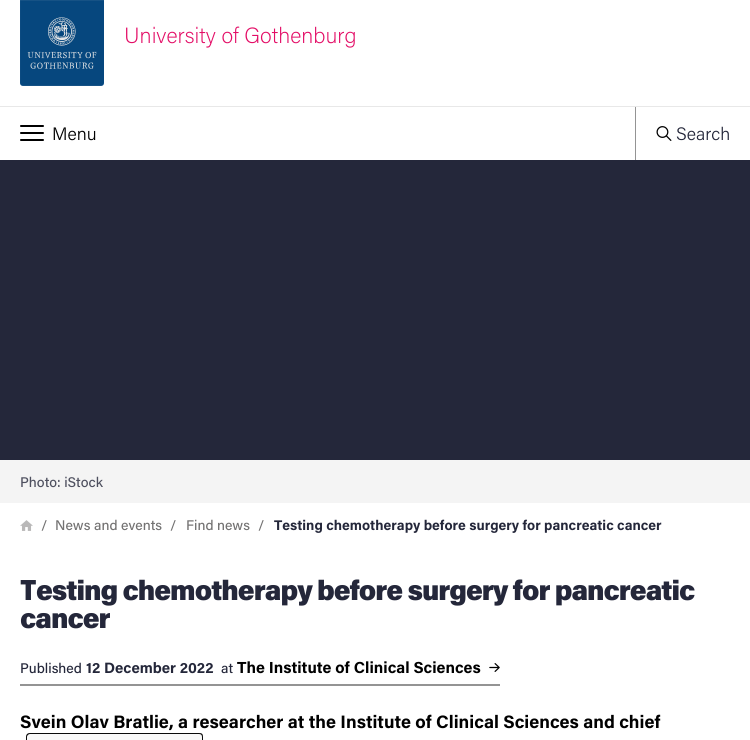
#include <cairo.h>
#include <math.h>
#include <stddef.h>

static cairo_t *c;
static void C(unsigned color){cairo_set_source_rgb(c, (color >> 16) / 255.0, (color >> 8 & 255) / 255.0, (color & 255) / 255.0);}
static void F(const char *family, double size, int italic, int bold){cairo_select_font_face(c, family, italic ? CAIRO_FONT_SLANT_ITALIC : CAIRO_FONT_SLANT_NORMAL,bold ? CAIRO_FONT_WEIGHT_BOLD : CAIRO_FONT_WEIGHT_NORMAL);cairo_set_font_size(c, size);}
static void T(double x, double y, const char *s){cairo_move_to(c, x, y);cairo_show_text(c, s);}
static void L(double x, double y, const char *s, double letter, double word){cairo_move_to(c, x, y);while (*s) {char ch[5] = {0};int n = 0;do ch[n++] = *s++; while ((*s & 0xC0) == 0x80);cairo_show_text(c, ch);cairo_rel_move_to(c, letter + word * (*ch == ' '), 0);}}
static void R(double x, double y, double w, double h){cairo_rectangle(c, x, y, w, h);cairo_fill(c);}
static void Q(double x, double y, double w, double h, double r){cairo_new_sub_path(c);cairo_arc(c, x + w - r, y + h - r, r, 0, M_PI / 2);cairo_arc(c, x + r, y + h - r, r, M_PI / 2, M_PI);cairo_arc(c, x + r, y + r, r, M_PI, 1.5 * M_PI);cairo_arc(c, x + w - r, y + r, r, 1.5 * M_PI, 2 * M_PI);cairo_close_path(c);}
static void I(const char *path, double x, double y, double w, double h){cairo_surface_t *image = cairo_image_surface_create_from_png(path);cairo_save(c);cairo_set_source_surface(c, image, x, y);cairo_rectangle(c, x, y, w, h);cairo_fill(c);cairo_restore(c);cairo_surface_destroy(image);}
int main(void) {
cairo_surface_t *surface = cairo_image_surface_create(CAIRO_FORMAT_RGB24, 750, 740);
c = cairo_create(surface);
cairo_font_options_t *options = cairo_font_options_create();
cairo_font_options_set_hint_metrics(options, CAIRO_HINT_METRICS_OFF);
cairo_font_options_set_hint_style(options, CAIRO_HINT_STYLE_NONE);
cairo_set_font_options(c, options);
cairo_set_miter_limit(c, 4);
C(0xffffff);
cairo_paint(c);
C(0xe8e8e8);
R(0,106,750,1);
I("1.png",20,0,84,86);
cairo_set_source_rgba(c,0,0,0,0.1);
cairo_new_path(c);
cairo_move_to(c,20,0);
cairo_line_to(c,104,0);
cairo_line_to(c,104,82);
cairo_curve_to(c,104,84,102,86,100,86);
cairo_line_to(c,24,86);
cairo_curve_to(c,22,86,20,84,20,82);
cairo_close_path(c);
cairo_fill(c);
F("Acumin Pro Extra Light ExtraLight",22,0,0);
C(0xe30d66);
T(124,43,"University of Gothenburg");
C(0x000000);
Q(20,125,24,2,1);
cairo_fill(c);
Q(20,132,24,2,1);
cairo_fill(c);
Q(20,139,24,2,1);
cairo_fill(c);
F("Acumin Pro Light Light",18,0,0);
T(52,140,"Menu");
C(0x949494);
R(635,107,1,53);
I("2.png",656,126,16,15);
C(0x24273a);
T(676,140,"Search");
R(0,160,750,300);
C(0xf4f4f4);
R(0,460,750,43);
F("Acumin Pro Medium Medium",14,0,0);
C(0x4e505f);
T(20,487,"Photo: iStock");
I("3.png",20,520,13,11);
C(0x737272);
T(41,530,"/");
T(55,530,"News and events");
T(170,530,"/");
T(186,530,"Find news");
T(258,530,"/");
F("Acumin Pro",14,0,1);
C(0x24273a);
T(274,530,"Testing chemotherapy before surgery for pancreatic cancer");
F("Noto Sans Black",28,0,0);
L(20,600,"T",-1,0);
F("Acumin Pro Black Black",28,0,0);
L(36,600,"esting chemotherapy before surgery for pancreatic",-1,0);
L(20,628,"cancer",-1,0);
C(0x949494);
R(20,684,480,2);
F("Acumin Pro Medium Medium",14,0,0);
C(0x24273a);
T(20,673,"Published");
F("Acumin Pro",15,0,1);
T(86,673,"12 December 2022");
F("Acumin Pro Medium Medium",14,0,0);
T(221,673,"at");
F("Acumin Pro",16,0,1);
C(0x000000);
T(237,673,"The Institute of Clinical Sciences");
I("4.png",489,663,11,9);
F("Acumin Pro",18,0,1);
T(20,728,"Svein Olav Bratlie, a researcher at the Institute of Clinical Sciences and chief");
C(0xf8f8f8);
cairo_new_path(c);
cairo_move_to(c,30,733);
cairo_line_to(c,199,733);
cairo_curve_to(c,201,733,203,735,203,737);
cairo_line_to(c,203,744);
cairo_line_to(c,26,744);
cairo_line_to(c,26,737);
cairo_curve_to(c,26,735,28,733,30,733);
cairo_close_path(c);
cairo_fill(c);
C(0x0a0a0a);
cairo_set_fill_rule(c,CAIRO_FILL_RULE_EVEN_ODD);
cairo_new_path(c);
cairo_move_to(c,30,733);
cairo_line_to(c,199,733);
cairo_curve_to(c,202,733,203,734,203,737);
cairo_line_to(c,203,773);
cairo_line_to(c,26,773);
cairo_line_to(c,26,737);
cairo_curve_to(c,26,734,28,733,30,733);
cairo_close_path(c);
cairo_move_to(c,30,734);
cairo_line_to(c,199,734);
cairo_curve_to(c,201,734,202,735,202,737);
cairo_line_to(c,202,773);
cairo_line_to(c,27,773);
cairo_line_to(c,27,737);
cairo_curve_to(c,27,735,29,734,30,734);
cairo_close_path(c);
cairo_fill(c);
cairo_surface_write_to_png(surface, "o.png");
cairo_font_options_destroy(options);
cairo_destroy(c);
cairo_surface_destroy(surface);
return 0;
}
